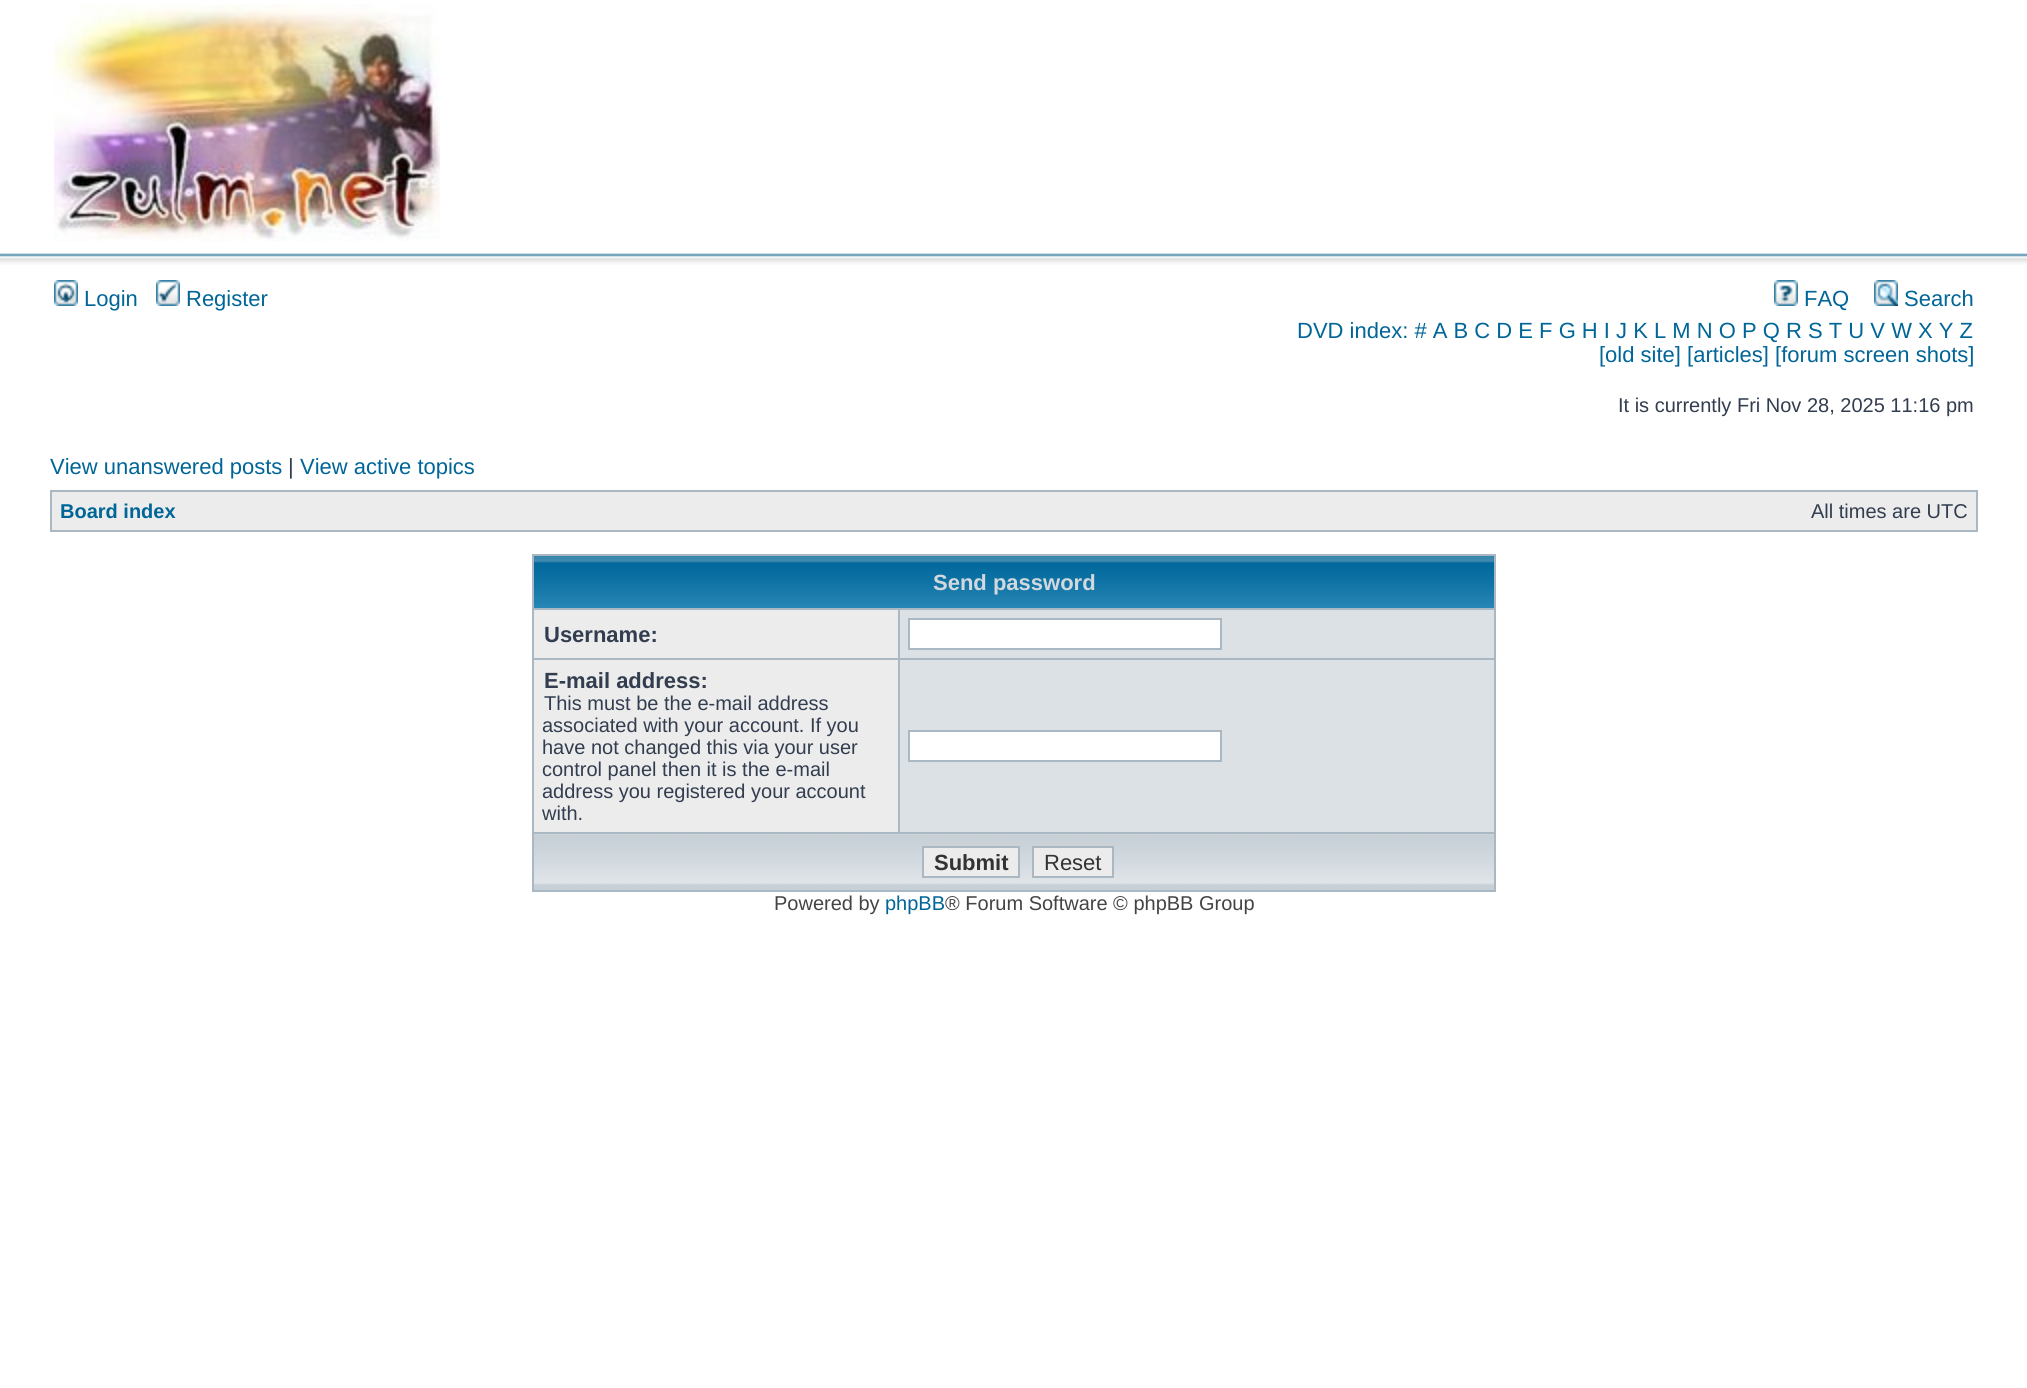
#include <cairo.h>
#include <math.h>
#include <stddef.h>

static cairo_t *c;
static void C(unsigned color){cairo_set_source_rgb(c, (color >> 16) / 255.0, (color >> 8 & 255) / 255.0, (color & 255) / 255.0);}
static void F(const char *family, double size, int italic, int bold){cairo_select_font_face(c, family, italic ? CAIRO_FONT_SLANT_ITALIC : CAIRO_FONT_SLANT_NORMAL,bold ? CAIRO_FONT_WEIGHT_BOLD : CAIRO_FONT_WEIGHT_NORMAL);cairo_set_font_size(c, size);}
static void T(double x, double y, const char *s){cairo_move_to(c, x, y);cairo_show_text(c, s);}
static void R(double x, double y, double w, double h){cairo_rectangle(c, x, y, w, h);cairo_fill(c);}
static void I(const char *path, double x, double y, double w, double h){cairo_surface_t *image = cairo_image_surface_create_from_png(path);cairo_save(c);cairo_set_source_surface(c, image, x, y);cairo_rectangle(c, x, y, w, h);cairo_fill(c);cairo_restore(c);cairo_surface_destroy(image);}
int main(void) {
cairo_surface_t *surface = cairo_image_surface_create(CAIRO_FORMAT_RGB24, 2027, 1388);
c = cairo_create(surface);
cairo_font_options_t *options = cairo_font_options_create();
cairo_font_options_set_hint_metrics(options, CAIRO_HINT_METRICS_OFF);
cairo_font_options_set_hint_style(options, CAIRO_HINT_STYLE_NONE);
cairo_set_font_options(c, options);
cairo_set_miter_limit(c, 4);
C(0xffffff);
cairo_paint(c);
I("1.png",0,253,2027,12);
I("2.png",54,4,386,238);
I("3.png",54,280,24,26);
F("Liberation Sans",22,0,0);
C(0x006597);
T(84,306,"Login");
I("4.png",156,280,24,26);
T(186,306,"Register");
I("5.png",1774,280,24,26);
T(1804,306,"FAQ");
I("6.png",1874,280,24,26);
T(1904,306,"Search");
T(1297,338,"DVD index: # A B C D E F G H I J K L M N O P Q R S T U V W X Y Z");
T(1599,362,"[old site] [articles] [forum screen shots]");
F("Liberation Sans",20,0,0);
C(0x323d4f);
T(1618,412,"It is currently Fri Nov 28, 2025 11:16 pm");
F("Liberation Sans",22,0,0);
C(0x006597);
T(50,474,"View unanswered posts");
C(0x323d4f);
T(288,474,"|");
C(0x006597);
T(300,474,"View active topics");
C(0xa9b8c2);
R(50,490,1928,42);
C(0xececec);
R(52,492,1924,38);
F("Liberation Sans",20,0,1);
C(0x006597);
T(60,518,"Board index");
F("Liberation Sans",20,0,0);
C(0x323d4f);
T(1811,518,"All times are UTC");
C(0xa9b8c2);
R(532,554,964,338);
I("7.png",534,556,960,52);
F("Liberation Sans",22,0,1);
C(0xd1d8de);
T(933,590,"Send password");
C(0xececec);
R(534,610,364,48);
C(0x323d4f);
T(544,642,"Username:");
C(0xdce1e5);
R(900,610,594,48);
C(0xffffff);
cairo_rectangle(c,909,619,312,30);
cairo_fill_preserve(c);
C(0xa9b8c2);
cairo_stroke(c);
C(0xececec);
R(534,660,364,172);
C(0x323d4f);
T(544,688,"E-mail address:");
F("Liberation Sans",20,0,0);
T(544,710,"This must be the e-mail address");
T(542,732,"associated with your account. If you");
T(542,754,"have not changed this via your user");
T(542,776,"control panel then it is the e-mail");
T(542,798,"address you registered your account");
T(542,820,"with.");
C(0xdce1e5);
R(900,660,594,172);
C(0xffffff);
cairo_rectangle(c,909,731,312,30);
cairo_fill_preserve(c);
C(0xa9b8c2);
cairo_stroke(c);
C(0xc7d0d7);
R(534,885,960,5);
I("8.png",534,834,960,51);
C(0xececec);
cairo_rectangle(c,923,847,96,30);
cairo_fill_preserve(c);
C(0xa9b8c2);
cairo_stroke(c);
F("Liberation Sans",22,0,1);
C(0x333333);
T(934,870,"Submit");
C(0xececec);
cairo_rectangle(c,1033,847,80,30);
cairo_fill_preserve(c);
C(0xa9b8c2);
cairo_stroke(c);
F("Liberation Sans",22,0,0);
C(0x333333);
T(1044,870,"Reset");
F("Liberation Sans",20,0,0);
C(0x444444);
T(774,910,"Powered by");
C(0x006597);
T(885,910,"phpBB");
C(0x444444);
T(945,910,"® Forum Software © phpBB Group");
cairo_surface_write_to_png(surface, "o.png");
cairo_font_options_destroy(options);
cairo_destroy(c);
cairo_surface_destroy(surface);
return 0;
}
